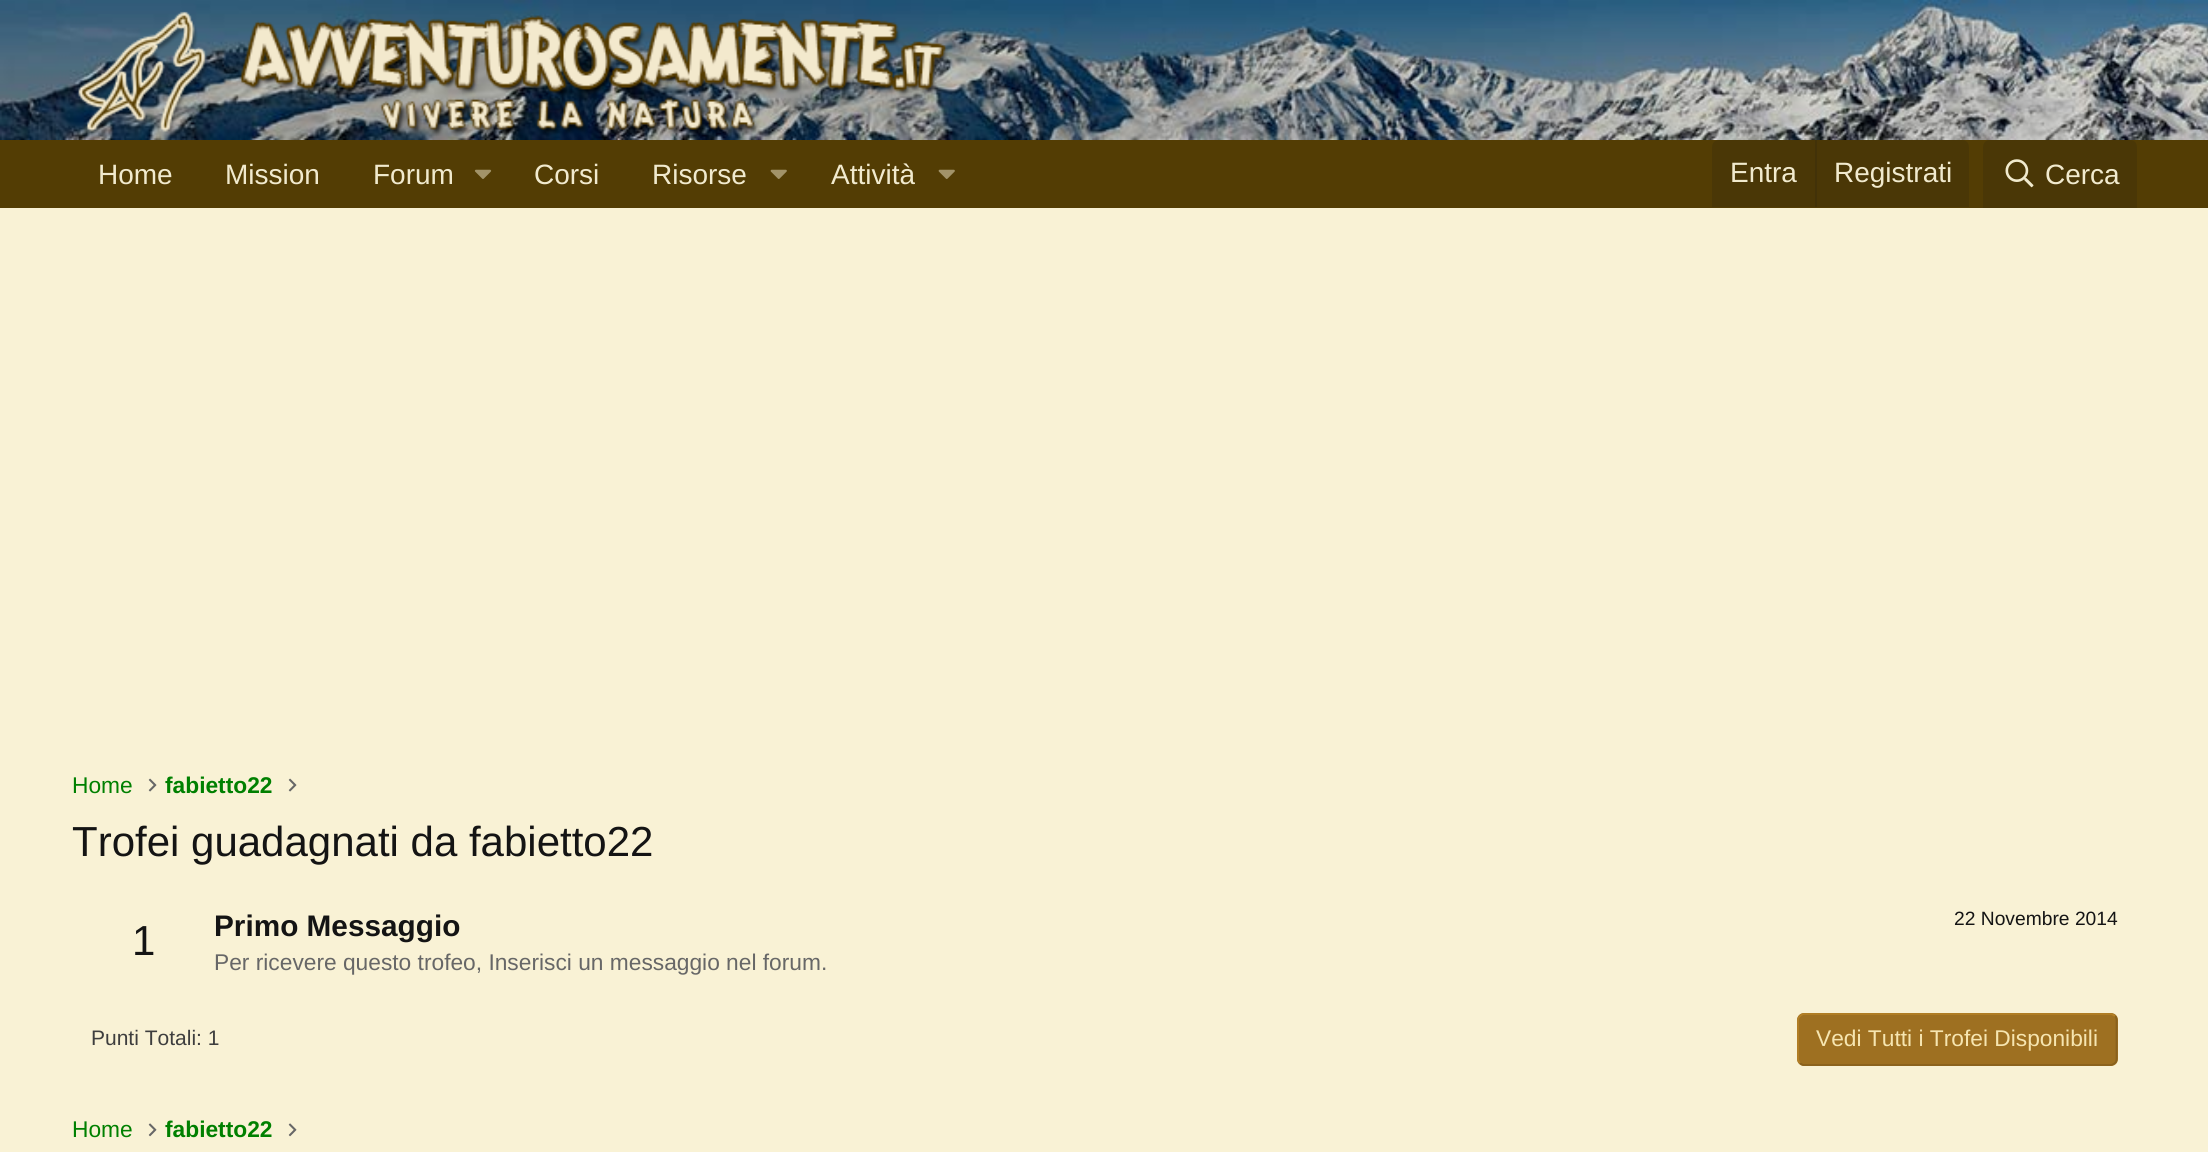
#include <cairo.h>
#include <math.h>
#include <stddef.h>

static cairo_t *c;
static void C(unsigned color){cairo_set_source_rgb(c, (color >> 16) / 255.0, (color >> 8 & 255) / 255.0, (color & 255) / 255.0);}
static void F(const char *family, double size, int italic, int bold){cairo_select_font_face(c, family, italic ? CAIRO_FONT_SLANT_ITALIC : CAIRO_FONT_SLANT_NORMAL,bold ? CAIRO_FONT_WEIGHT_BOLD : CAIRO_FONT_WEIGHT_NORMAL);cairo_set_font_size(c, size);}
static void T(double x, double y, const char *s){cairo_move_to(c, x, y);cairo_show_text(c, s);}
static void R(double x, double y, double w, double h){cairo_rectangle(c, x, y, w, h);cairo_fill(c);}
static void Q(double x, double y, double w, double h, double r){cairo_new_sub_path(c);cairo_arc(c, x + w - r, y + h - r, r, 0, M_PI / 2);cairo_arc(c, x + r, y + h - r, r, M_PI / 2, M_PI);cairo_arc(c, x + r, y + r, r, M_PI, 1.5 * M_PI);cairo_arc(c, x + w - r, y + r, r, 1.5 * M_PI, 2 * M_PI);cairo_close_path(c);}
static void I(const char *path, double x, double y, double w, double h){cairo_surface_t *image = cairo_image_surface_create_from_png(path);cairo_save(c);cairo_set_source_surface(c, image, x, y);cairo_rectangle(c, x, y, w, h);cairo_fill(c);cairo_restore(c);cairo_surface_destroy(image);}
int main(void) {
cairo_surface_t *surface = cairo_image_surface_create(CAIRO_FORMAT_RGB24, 2208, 1152);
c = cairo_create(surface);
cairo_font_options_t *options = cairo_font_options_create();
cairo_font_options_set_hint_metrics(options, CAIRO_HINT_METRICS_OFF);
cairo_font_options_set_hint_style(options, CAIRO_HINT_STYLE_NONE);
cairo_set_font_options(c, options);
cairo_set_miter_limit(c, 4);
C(0xf9f2d5);
cairo_paint(c);
I("1.png",0,0,2208,140);
I("2.png",78,11,870,125);
C(0x533d04);
R(0,140,2208,68);
F("Liberation Sans",28,0,0);
C(0xf1eace);
T(98,184,"Home");
T(225,184,"Mission");
T(373,184,"Forum");
I("3.png",474,169,18,10);
T(534,184,"Corsi");
T(652,184,"Risorse");
I("4.png",770,169,17,10);
T(831,184,"Attività");
I("4.png",938,169,17,10);
C(0x4a3706);
cairo_new_path(c);
cairo_move_to(c,1719,140);
cairo_line_to(c,1962,140);
cairo_curve_to(c,1966,140,1969,143,1969,147);
cairo_line_to(c,1969,207);
cairo_line_to(c,1712,207);
cairo_line_to(c,1712,147);
cairo_curve_to(c,1712,143,1715,140,1719,140);
cairo_close_path(c);
cairo_fill(c);
C(0xf1eace);
T(1730,182,"Entra");
C(0x423208);
R(1815,140,2,67);
C(0xf1eace);
T(1834,182,"Registrati");
C(0x4a3706);
cairo_new_path(c);
cairo_move_to(c,1990,140);
cairo_line_to(c,2130,140);
cairo_curve_to(c,2134,140,2137,143,2137,147);
cairo_line_to(c,2137,208);
cairo_line_to(c,1983,208);
cairo_line_to(c,1983,147);
cairo_curve_to(c,1983,143,1986,140,1990,140);
cairo_close_path(c);
cairo_fill(c);
I("5.png",2005,159,29,29);
C(0xf1eace);
T(2045,184,"Cerca");
F("Liberation Sans",22.75,0,0);
C(0x008000);
T(72,793,"Home");
I("6.png",148,778,9,14);
F("Liberation Sans",22.75,0,1);
T(165,793,"fabietto22");
I("6.png",288,778,9,14);
F("Liberation Sans",42,0,0);
C(0x141414);
T(72,856,"Trofei guadagnati da fabietto22");
T(132,955,"1");
F("Liberation Sans",29.75,0,1);
T(214,936,"Primo Messaggio");
F("Liberation Sans",19.25,0,0);
T(1954,925,"22 Novembre 2014");
F("Liberation Sans",22.75,0,0);
C(0x676767);
T(214,970,"Per ricevere questo trofeo, Inserisci un messaggio nel forum.");
F("Liberation Sans",21,0,0);
C(0x3e3e3e);
T(91,1045,"Punti Totali: 1");
C(0x9e7021);
Q(1797,1013,321,53,7);
cairo_fill(c);
cairo_new_path(c);
cairo_move_to(c,2115,1016);
cairo_curve_to(c,2116,1017,2116.5,1018.5,2116.5,1020);
cairo_line_to(c,2116.5,1059);
cairo_curve_to(c,2116.5,1060.5,2116,1062,2115,1063);
cairo_curve_to(c,2113.5,1064,2112,1065,2110.5,1065);
cairo_line_to(c,1804,1065);
cairo_curve_to(c,1802.5,1065,1801,1064,1800,1063);
C(0x89611d);
cairo_set_line_width(c,1.8);
cairo_stroke(c);
cairo_new_path(c);
cairo_move_to(c,1800,1063);
cairo_curve_to(c,1799,1062,1798,1060.5,1798,1059);
cairo_line_to(c,1798,1020);
cairo_curve_to(c,1798,1018.5,1799,1017,1800,1016);
cairo_curve_to(c,1801,1015,1802.5,1014,1804,1014);
cairo_line_to(c,2110.5,1014);
cairo_curve_to(c,2112,1014,2113.5,1015,2115,1016);
C(0xb37f25);
cairo_stroke(c);
F("Liberation Sans",22.75,0,0);
C(0xf6e5b0);
T(1816,1046,"Vedi Tutti i Trofei Disponibili");
C(0x008000);
T(72,1137,"Home");
I("7.png",148,1123,9,14);
F("Liberation Sans",22.75,0,1);
T(165,1137,"fabietto22");
I("7.png",288,1123,9,14);
cairo_surface_write_to_png(surface, "o.png");
cairo_font_options_destroy(options);
cairo_destroy(c);
cairo_surface_destroy(surface);
return 0;
}
